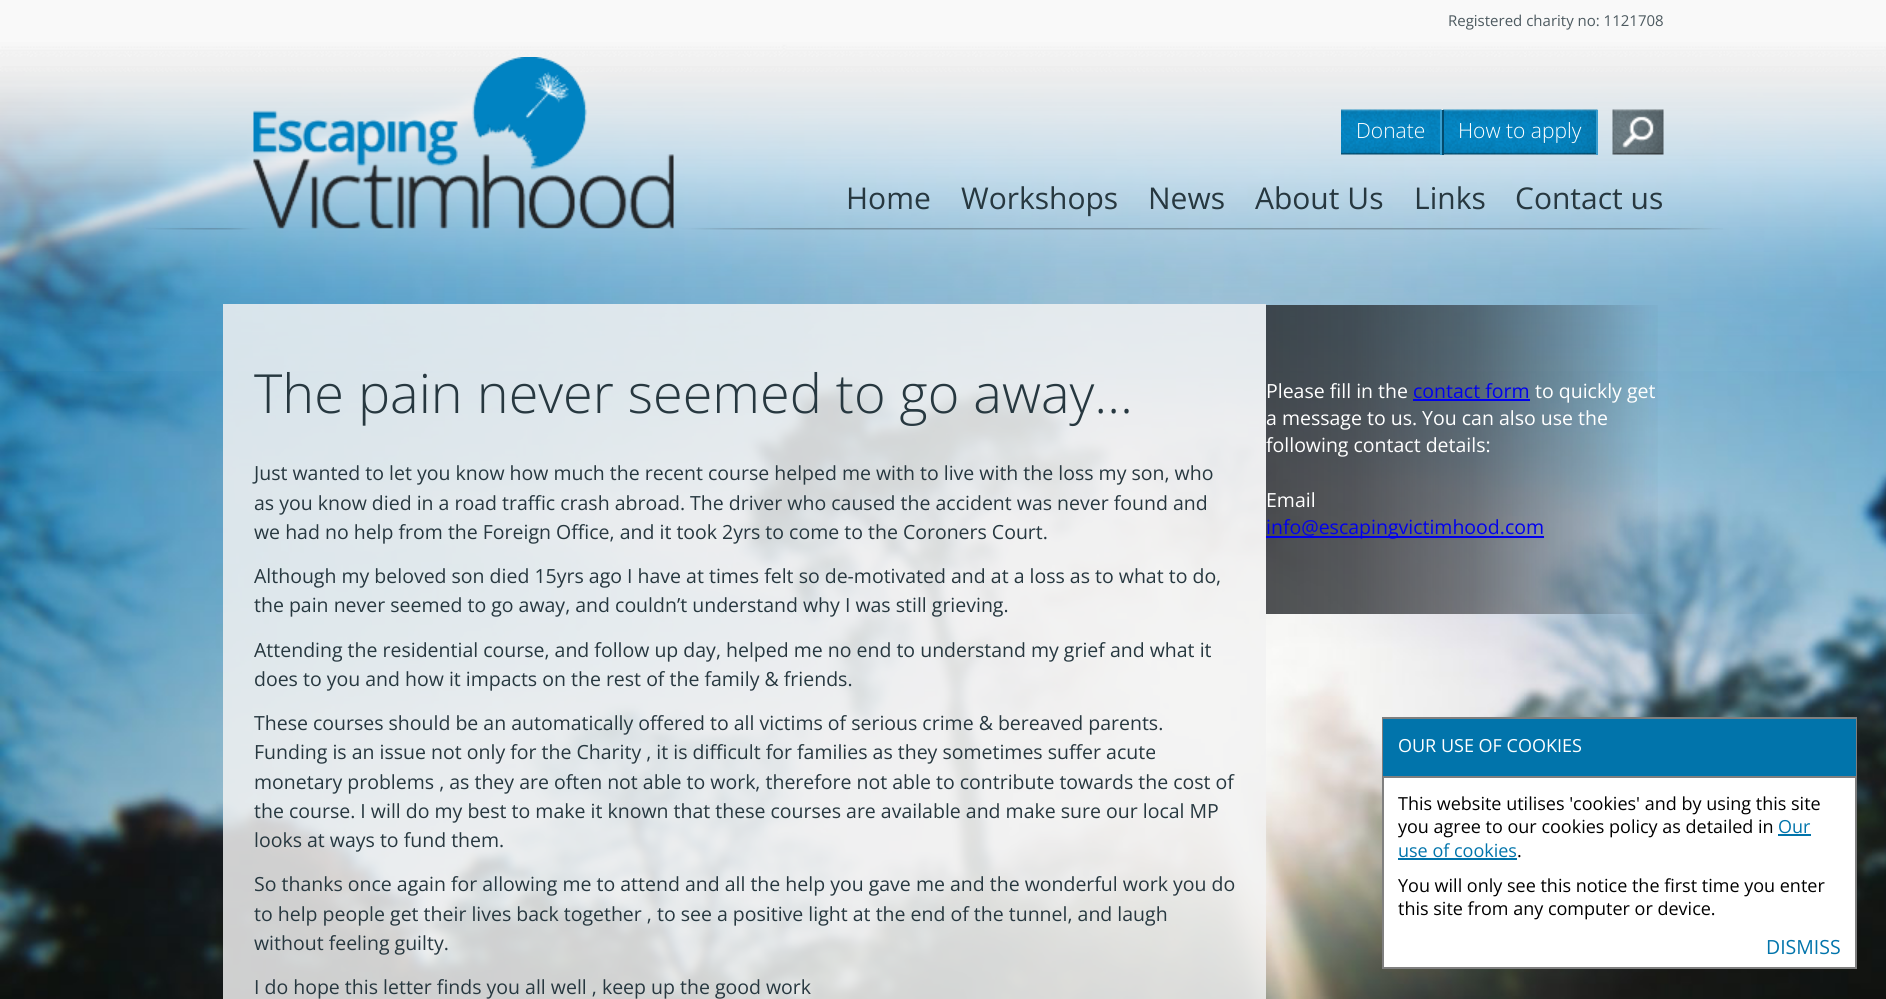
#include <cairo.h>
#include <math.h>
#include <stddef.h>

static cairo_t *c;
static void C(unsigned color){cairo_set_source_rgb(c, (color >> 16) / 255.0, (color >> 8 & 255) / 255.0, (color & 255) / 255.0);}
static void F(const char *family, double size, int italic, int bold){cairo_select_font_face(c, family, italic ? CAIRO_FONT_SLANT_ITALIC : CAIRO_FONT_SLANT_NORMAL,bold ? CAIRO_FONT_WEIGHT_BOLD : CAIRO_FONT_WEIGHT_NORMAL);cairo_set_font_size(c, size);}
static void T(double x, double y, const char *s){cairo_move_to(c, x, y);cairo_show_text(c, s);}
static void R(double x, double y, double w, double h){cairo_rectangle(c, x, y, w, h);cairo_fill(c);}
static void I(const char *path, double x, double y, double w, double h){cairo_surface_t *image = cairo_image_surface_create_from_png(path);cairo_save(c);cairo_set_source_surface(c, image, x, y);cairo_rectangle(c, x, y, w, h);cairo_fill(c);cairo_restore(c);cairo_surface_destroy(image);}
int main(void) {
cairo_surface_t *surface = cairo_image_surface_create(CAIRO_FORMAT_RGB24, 1886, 999);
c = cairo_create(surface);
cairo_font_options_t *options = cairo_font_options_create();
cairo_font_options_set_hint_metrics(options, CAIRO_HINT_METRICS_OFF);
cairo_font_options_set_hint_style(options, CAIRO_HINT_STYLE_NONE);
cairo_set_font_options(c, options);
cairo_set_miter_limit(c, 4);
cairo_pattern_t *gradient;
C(0xffffff);
cairo_paint(c);
C(0xf9f9f9);
R(0,0,1886,42);
F("Open Sans",15,0,0);
C(0x4d5a60);
T(1448,26,"Registered charity no: 1121708");
I("2.png",0,71,1886,928);
I("1.png",0,42,1886,329);
I("3.png",146,228,1577,2);
I("4.png",253,57,421,172);
I("5.png",1341,109,101,46);
C(0x379ed0);
R(1440,110,2,45);
F("Open Sans Light",21,0,0);
C(0xffffff);
T(1356,138,"Donate");
I("6.png",1443,109,155,46);
C(0x379ed0);
R(1596,110,2,45);
C(0x034b6d);
R(1442,110,2,45);
C(0xffffff);
T(1458,138,"How to apply");
I("7.png",1612,109,52,46);
F("Open Sans",30,0,0);
C(0x273840);
T(846,209,"Home");
T(961,209,"Workshops");
T(1148,209,"News");
T(1255,209,"About Us");
T(1414,209,"Links");
T(1515,209,"Contact us");
cairo_set_source_rgba(c,0.953,0.953,0.953,0.84);
R(223,304,1043,695);
F("Open Sans Light",54,0,0);
C(0x273840);
T(254,413,"The pain never seemed to go away…");
F("Open Sans",19.5,0,0);
T(254,480,"Just wanted to let you know how much the recent course helped me with to live with the loss my son, who");
T(254,510,"as you know died in a road traffic crash abroad. The driver who caused the accident was never found and");
T(254,539,"we had no help from the Foreign Office, and it took 2yrs to come to the Coroners Court.");
T(254,583,"Although my beloved son died 15yrs ago I have at times felt so de-motivated and at a loss as to what to do,");
T(254,612,"the pain never seemed to go away, and couldn’t understand why I was still grieving.");
T(254,657,"Attending the residential course, and follow up day, helped me no end to understand my grief and what it");
T(254,686,"does to you and how it impacts on the rest of the family & friends.");
T(254,730,"These courses should be an automatically offered to all victims of serious crime & bereaved parents.");
T(254,759,"Funding is an issue not only for the Charity , it is difficult for families as they sometimes suffer acute");
T(254,789,"monetary problems , as they are often not able to work, therefore not able to contribute towards the cost of");
T(254,818,"the course. I will do my best to make it known that these courses are available and make sure our local MP");
T(254,847,"looks at ways to fund them.");
T(254,891,"So thanks once again for allowing me to attend and all the help you gave me and the wonderful work you do");
T(254,921,"to help people get their lives back together , to see a positive light at the end of the tunnel, and laugh");
T(254,950,"without feeling guilty.");
T(254,994,"I do hope this letter finds you all well , keep up the good work");
gradient = cairo_pattern_create_linear(1266,459,1664,459);
cairo_pattern_add_color_stop_rgba(gradient,0,0.141,0.153,0.165,.8);
cairo_pattern_add_color_stop_rgba(gradient,.22,0.141,0.153,0.165,.75);
cairo_pattern_add_color_stop_rgba(gradient,.52,0.141,0.153,0.165,.57);
cairo_pattern_add_color_stop_rgba(gradient,.81,0.141,0.153,0.165,.24);
cairo_pattern_add_color_stop_rgba(gradient,.94,0.141,0.153,0.165,.06);
cairo_pattern_add_color_stop_rgba(gradient,1,0.141,0.153,0.165,.01);
cairo_set_source(c,gradient);
cairo_pattern_destroy(gradient);
R(1266,305,392,309);
C(0xffffff);
T(1266,398,"Please fill in the");
C(0x0000ee);
T(1413,398,"contact form");
R(1413,399,117,2);
C(0xffffff);
T(1535,398,"to quickly get");
T(1266,425,"a message to us. You can also use the");
T(1266,452,"following contact details:");
T(1266,507,"Email");
C(0x0000ee);
R(1266,536,278,2);
T(1266,534,"info@escapingvictimhood.com");
C(0xffffff);
R(1384,778,471,189);
cairo_rectangle(c,1383,718,473,250);
C(0x7f7f7f);
cairo_stroke(c);
C(0x0174ab);
R(1383,719,473,57);
C(0x7f7f7f);
R(1383,776,473,2);
F("Open Sans",18,0,0);
C(0xffffff);
T(1398,752,"OUR USE OF COOKIES");
C(0x000000);
T(1398,810,"This website utilises 'cookies' and by using this site");
T(1398,833,"you agree to our cookies policy as detailed in");
C(0x0174ab);
T(1778,833,"Our");
R(1778,834,33,2);
T(1398,857,"use of cookies");
R(1398,858,119,2);
C(0x000000);
T(1517,857,".");
T(1398,892,"You will only see this notice the first time you enter");
T(1398,915,"this site from any computer or device.");
F("Open Sans",19.5,0,0);
C(0x0174ab);
T(1766,954,"DISMISS");
cairo_surface_write_to_png(surface, "o.png");
cairo_font_options_destroy(options);
cairo_destroy(c);
cairo_surface_destroy(surface);
return 0;
}
